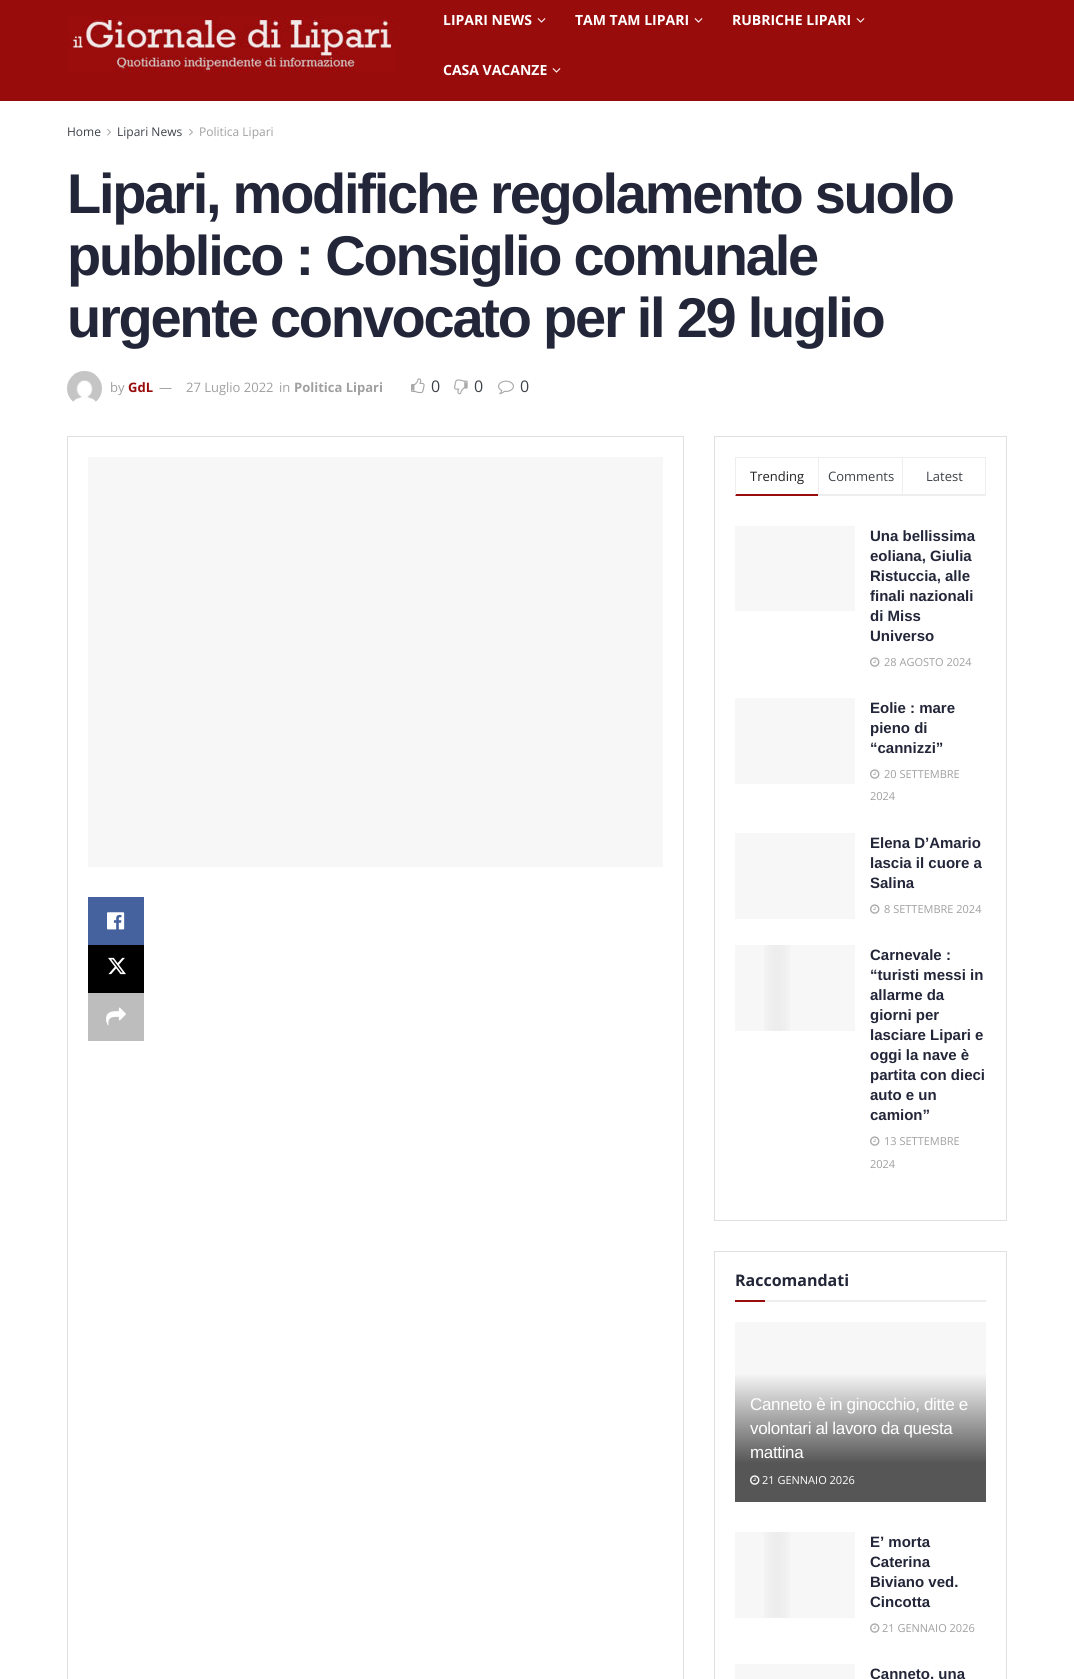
#include <cairo.h>
#include <math.h>
#include <stddef.h>

static cairo_t *c;
static void C(unsigned color){cairo_set_source_rgb(c, (color >> 16) / 255.0, (color >> 8 & 255) / 255.0, (color & 255) / 255.0);}
static void F(const char *family, double size, int italic, int bold){cairo_select_font_face(c, family, italic ? CAIRO_FONT_SLANT_ITALIC : CAIRO_FONT_SLANT_NORMAL,bold ? CAIRO_FONT_WEIGHT_BOLD : CAIRO_FONT_WEIGHT_NORMAL);cairo_set_font_size(c, size);}
static void T(double x, double y, const char *s){cairo_move_to(c, x, y);cairo_show_text(c, s);}
static void L(double x, double y, const char *s, double letter, double word){cairo_move_to(c, x, y);while (*s) {char ch[5] = {0};int n = 0;do ch[n++] = *s++; while ((*s & 0xC0) == 0x80);cairo_show_text(c, ch);cairo_rel_move_to(c, letter + word * (*ch == ' '), 0);}}
static void R(double x, double y, double w, double h){cairo_rectangle(c, x, y, w, h);cairo_fill(c);}
static void I(const char *path, double x, double y, double w, double h){cairo_surface_t *image = cairo_image_surface_create_from_png(path);cairo_save(c);cairo_set_source_surface(c, image, x, y);cairo_rectangle(c, x, y, w, h);cairo_fill(c);cairo_restore(c);cairo_surface_destroy(image);}
int main(void) {
cairo_surface_t *surface = cairo_image_surface_create(CAIRO_FORMAT_RGB24, 1074, 1679);
c = cairo_create(surface);
cairo_font_options_t *options = cairo_font_options_create();
cairo_font_options_set_hint_metrics(options, CAIRO_HINT_METRICS_OFF);
cairo_font_options_set_hint_style(options, CAIRO_HINT_STYLE_NONE);
cairo_set_font_options(c, options);
cairo_set_miter_limit(c, 4);
cairo_pattern_t *gradient;
C(0xffffff);
cairo_paint(c);
C(0x990c0c);
R(0,0,1074,101);
I("1.png",67,16,328,56);
F("Open Sans",14,0,1);
C(0xffffff);
T(443,25,"LIPARI NEWS");
I("2.png",537,18,9,5);
T(575,25,"TAM TAM LIPARI");
I("2.png",694,18,9,5);
T(732,25,"RUBRICHE LIPARI");
I("2.png",856,18,9,5);
T(443,75,"CASA VACANZE");
I("2.png",552,68,9,5);
F("Open Sans",12,0,0);
C(0x3d4248);
T(67,136,"Home");
I("3.png",107,128,4,8);
T(117,136,"Lipari News");
I("3.png",189,128,4,8);
C(0xa0a0a0);
T(199,136,"Politica Lipari");
F("Liberation Sans",56,0,1);
C(0x222638);
L(67,213,"Lipari, modifiche regolamento suolo",-2.25,0);
L(67,275,"pubblico : Consiglio comunale",-2.25,0);
L(67,337,"urgente convocato per il 29 luglio",-2.25,0);
I("4.png",67,371,35,31);
F("Open Sans",13,0,0);
C(0xa0a0a0);
T(110,392,"by");
F("Open Sans",13,0,1);
C(0x990c0c);
T(128,392,"GdL");
F("Open Sans",13,0,0);
C(0xa0a0a0);
T(159,392,"—");
T(186,392,"27 Luglio 2022");
T(279,392,"in");
F("Open Sans",13,0,1);
T(294,392,"Politica Lipari");
I("5.png",411,378,14,16);
F("Open Sans",16,0,0);
C(0x3d4248);
T(431,392,"0");
I("6.png",454,379,14,16);
T(474,392,"0");
I("7.png",498,380,16,15);
T(520,392,"0");
cairo_rectangle(c,67.5,436.5,616,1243);
C(0xe0e0e0);
cairo_set_line_width(c,1);
cairo_stroke(c);
C(0xf7f7f7);
R(88,457,575,410);
C(0x45629f);
R(88,897,56,48);
I("8.png",107,912,18,18);
C(0x000000);
R(88,945,56,48);
I("9.png",108,957,18,18);
C(0xbdbdbd);
R(88,993,56,48);
I("10.png",106,1007,20,19);
cairo_rectangle(c,714.5,436.5,292,784);
C(0xe0e0e0);
cairo_stroke(c);
C(0xeeeeee);
R(735,457,251,1);
C(0x990c0c);
cairo_new_path(c);
cairo_move_to(c,818,496);
cairo_line_to(c,735,496);
cairo_line_to(c,736,494);
cairo_line_to(c,818,494);
cairo_close_path(c);
cairo_fill(c);
C(0xeeeeee);
cairo_new_path(c);
cairo_move_to(c,735,496);
cairo_line_to(c,735,457);
cairo_line_to(c,736,458);
cairo_line_to(c,736,494);
cairo_close_path(c);
cairo_fill(c);
F("Open Sans",13,0,0);
C(0x212121);
T(750,481,"Trending");
C(0xeeeeee);
R(818,494,84,2);
R(818,457,1,39);
C(0x3d4248);
T(828,481,"Comments");
C(0xeeeeee);
R(985,457,1,39);
R(902,494,84,2);
R(902,457,1,39);
C(0x3d4248);
T(926,481,"Latest");
C(0xf7f7f7);
R(735,526,120,85);
F("Liberation Sans",15,0,1);
C(0x222638);
T(870,541,"Una bellissima");
T(870,561,"eoliana, Giulia");
T(870,581,"Ristuccia, alle");
T(870,601,"finali nazionali");
T(870,621,"di Miss");
T(870,641,"Universo");
I("11.png",870,657,10,10);
F("Open Sans",11,0,0);
C(0xa0a0a0);
T(884,666,"28 AGOSTO 2024");
C(0xf7f7f7);
R(735,698,120,86);
F("Liberation Sans",15,0,1);
C(0x222638);
T(870,713,"Eolie : mare");
T(870,733,"pieno di");
T(870,753,"“cannizzi”");
I("11.png",870,769,10,10);
F("Open Sans",11,0,0);
C(0xa0a0a0);
T(884,778,"20 SETTEMBRE");
T(870,800,"2024");
C(0xf7f7f7);
R(735,833,120,86);
F("Liberation Sans",15,0,1);
C(0x222638);
T(870,848,"Elena D’Amario");
T(870,868,"lascia il cuore a");
T(870,888,"Salina");
I("11.png",870,904,10,10);
F("Open Sans",11,0,0);
C(0xa0a0a0);
T(884,913,"8 SETTEMBRE 2024");
C(0xf7f7f7);
R(735,945,120,86);
I("12.png",764,945,26,86);
F("Liberation Sans",15,0,1);
C(0x222638);
T(870,960,"Carnevale :");
T(870,980,"“turisti messi in");
T(870,1000,"allarme da");
T(870,1020,"giorni per");
T(870,1040,"lasciare Lipari e");
T(870,1060,"oggi la nave è");
T(870,1080,"partita con dieci");
T(870,1100,"auto e un");
T(870,1120,"camion”");
I("11.png",870,1136,10,10);
F("Open Sans",11,0,0);
C(0xa0a0a0);
T(884,1145,"13 SETTEMBRE");
T(870,1168,"2024");
cairo_rectangle(c,714.5,1251.5,292,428);
C(0xe0e0e0);
cairo_stroke(c);
C(0xeeeeee);
R(765,1300,221,2);
F("Open Sans",16,0,1);
C(0x222638);
T(735,1286,"Raccomandati");
C(0x990c0c);
R(735,1300,30,2);
C(0xf7f7f7);
R(735,1322,251,51);
gradient = cairo_pattern_create_linear(861,1373,861,1502);
cairo_pattern_add_color_stop_rgba(gradient,0,0.969,0.969,0.969,1);
cairo_pattern_add_color_stop_rgba(gradient,.7,0.337,0.337,0.337,1);
cairo_set_source(c,gradient);
cairo_pattern_destroy(gradient);
R(735,1373,251,129);
F("Liberation Sans",17,0,0);
C(0xffffff);
L(750,1410,"Canneto è in ginocchio, ditte e",-.35,0);
L(750,1434,"volontari al lavoro da questa",-.35,0);
L(750,1458,"mattina",-.35,0);
I("13.png",750,1475,10,10);
F("Open Sans",11,0,0);
T(762,1484,"21 GENNAIO 2026");
C(0xf7f7f7);
R(735,1532,120,86);
I("14.png",764,1532,26,86);
F("Liberation Sans",15,0,1);
C(0x222638);
T(870,1547,"E’ morta");
T(870,1567,"Caterina");
T(870,1587,"Biviano ved.");
T(870,1607,"Cincotta");
I("11.png",870,1623,10,10);
F("Open Sans",11,0,0);
C(0xa0a0a0);
T(882,1632,"21 GENNAIO 2026");
C(0xf7f7f7);
R(735,1664,120,15);
F("Liberation Sans",15,0,1);
C(0x222638);
T(870,1679,"Canneto, una");
cairo_surface_write_to_png(surface, "o.png");
cairo_font_options_destroy(options);
cairo_destroy(c);
cairo_surface_destroy(surface);
return 0;
}
